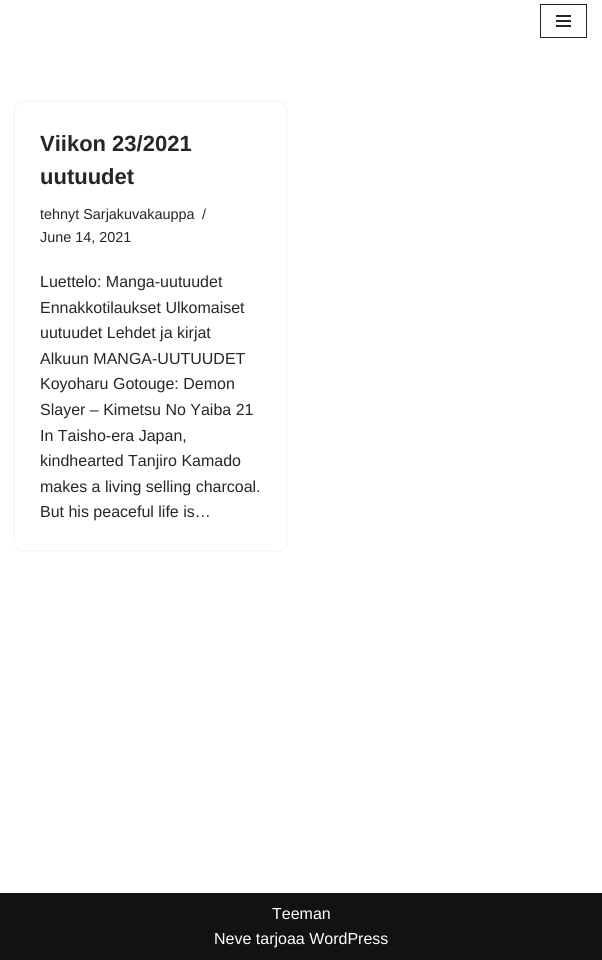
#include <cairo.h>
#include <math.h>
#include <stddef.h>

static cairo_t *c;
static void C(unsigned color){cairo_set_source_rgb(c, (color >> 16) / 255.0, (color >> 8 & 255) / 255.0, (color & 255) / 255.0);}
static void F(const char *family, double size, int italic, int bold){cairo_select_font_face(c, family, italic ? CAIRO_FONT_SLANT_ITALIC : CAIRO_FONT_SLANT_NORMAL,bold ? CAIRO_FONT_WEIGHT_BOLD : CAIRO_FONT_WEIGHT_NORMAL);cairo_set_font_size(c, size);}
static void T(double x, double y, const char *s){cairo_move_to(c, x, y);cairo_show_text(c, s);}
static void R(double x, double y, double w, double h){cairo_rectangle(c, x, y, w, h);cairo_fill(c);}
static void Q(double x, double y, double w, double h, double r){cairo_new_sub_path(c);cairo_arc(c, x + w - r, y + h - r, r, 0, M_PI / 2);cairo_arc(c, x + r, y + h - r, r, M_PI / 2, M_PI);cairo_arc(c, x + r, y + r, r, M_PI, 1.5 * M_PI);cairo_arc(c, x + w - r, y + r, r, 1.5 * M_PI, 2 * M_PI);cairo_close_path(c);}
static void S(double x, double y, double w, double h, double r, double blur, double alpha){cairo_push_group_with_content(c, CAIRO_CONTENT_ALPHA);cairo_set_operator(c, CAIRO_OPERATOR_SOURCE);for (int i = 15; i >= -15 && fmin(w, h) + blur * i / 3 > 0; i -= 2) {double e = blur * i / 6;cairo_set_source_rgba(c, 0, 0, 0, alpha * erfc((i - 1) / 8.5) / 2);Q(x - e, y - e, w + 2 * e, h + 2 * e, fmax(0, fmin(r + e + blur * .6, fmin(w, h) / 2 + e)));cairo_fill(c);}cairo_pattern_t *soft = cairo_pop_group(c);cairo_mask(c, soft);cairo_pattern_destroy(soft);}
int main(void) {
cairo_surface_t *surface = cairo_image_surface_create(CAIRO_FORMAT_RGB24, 602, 960);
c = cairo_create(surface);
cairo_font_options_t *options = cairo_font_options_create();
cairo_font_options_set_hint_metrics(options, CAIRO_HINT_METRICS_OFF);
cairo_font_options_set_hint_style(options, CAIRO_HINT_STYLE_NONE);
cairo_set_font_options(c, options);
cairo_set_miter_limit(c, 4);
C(0xffffff);
cairo_paint(c);
cairo_rectangle(c,540.5,4.5,46,33);
C(0x272626);
cairo_set_line_width(c,1);
cairo_stroke(c);
R(556,15,15,2);
R(556,20,15,2);
R(556,25,15,2);
C(0x000000);
S(15,102,271,448,8,1,.15);
C(0xffffff);
Q(15,102,271,448,8);
cairo_fill(c);
F("Liberation Sans",22,0,1);
C(0x272626);
T(40,151,"Viikon 23/2021");
T(40,184,"uutuudet");
F("Liberation Sans",14.4,0,0);
T(40,219,"tehnyt Sarjakuvakauppa");
T(202,219,"/");
T(40,242,"June 14, 2021");
F("Liberation Sans",16,0,0);
T(40,287,"Luettelo: Manga-uutuudet");
T(40,313,"Ennakkotilaukset Ulkomaiset");
T(40,338,"uutuudet Lehdet ja kirjat");
T(40,364,"Alkuun MANGA-UUTUUDET");
T(40,389,"Koyoharu Gotouge: Demon");
T(40,415,"Slayer – Kimetsu No Yaiba 21");
T(40,441,"In Taisho-era Japan,");
T(40,466,"kindhearted Tanjiro Kamado");
T(40,492,"makes a living selling charcoal.");
T(40,517,"But his peaceful life is…");
C(0x121212);
R(0,893,602,67);
C(0xffffff);
T(272,919,"Teeman");
T(214,944,"Neve tarjoaa WordPress");
cairo_surface_write_to_png(surface, "o.png");
cairo_font_options_destroy(options);
cairo_destroy(c);
cairo_surface_destroy(surface);
return 0;
}
